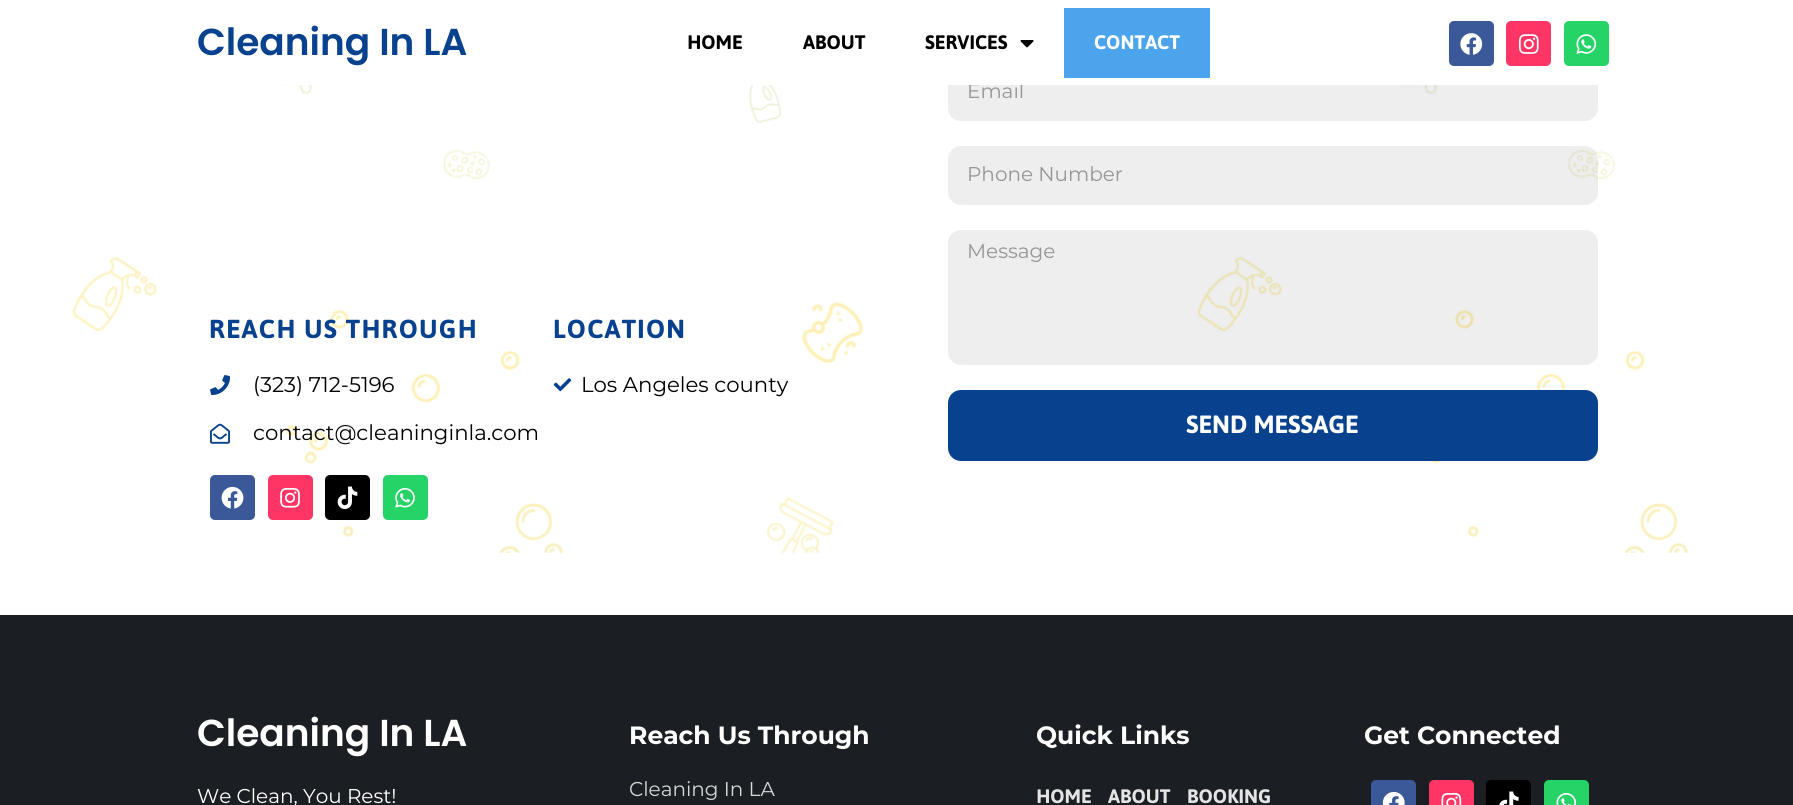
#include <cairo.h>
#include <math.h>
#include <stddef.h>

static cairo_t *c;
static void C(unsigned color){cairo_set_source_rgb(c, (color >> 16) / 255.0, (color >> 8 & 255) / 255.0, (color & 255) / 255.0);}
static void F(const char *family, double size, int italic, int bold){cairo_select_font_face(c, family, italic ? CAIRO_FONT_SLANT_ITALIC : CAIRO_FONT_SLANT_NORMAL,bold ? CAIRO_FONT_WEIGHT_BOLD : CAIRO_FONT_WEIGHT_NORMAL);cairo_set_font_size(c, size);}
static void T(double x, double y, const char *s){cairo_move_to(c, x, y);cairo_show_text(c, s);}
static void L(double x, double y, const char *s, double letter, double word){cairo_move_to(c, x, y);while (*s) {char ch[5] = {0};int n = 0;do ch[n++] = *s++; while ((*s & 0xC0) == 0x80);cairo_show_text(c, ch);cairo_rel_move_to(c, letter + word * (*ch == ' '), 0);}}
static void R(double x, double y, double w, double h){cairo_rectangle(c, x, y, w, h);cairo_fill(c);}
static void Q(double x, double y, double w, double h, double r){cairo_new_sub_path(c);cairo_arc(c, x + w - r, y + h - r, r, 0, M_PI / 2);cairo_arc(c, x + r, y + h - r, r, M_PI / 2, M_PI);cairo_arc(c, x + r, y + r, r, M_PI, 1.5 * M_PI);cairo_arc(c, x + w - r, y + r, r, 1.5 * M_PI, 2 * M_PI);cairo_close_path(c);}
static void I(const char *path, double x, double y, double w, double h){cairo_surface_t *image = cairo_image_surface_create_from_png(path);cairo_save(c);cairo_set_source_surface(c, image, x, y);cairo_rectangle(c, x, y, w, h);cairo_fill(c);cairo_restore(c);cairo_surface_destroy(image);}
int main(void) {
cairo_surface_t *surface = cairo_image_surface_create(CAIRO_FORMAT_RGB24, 1793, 805);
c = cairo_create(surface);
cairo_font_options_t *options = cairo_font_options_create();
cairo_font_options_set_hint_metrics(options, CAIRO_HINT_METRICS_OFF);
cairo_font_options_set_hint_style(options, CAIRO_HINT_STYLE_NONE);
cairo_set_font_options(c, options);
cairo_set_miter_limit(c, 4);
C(0xffffff);
cairo_paint(c);
I("12.png",72,85,1616,468);
cairo_set_source_rgba(c,0,0,0,0.07);
Q(948,63,650,58,13);
cairo_fill(c);
F("Montserrat",20,0,0);
C(0x959595);
T(967,98,"Email");
C(0xffffff);
R(948,63,650,22);
F("Poppins SemiBold",37.5,0,0);
C(0x08418e);
T(197,55,"Cleaning In LA");
F("Jaldi",22.5,0,1);
C(0x000000);
T(687,49,"HOME");
T(803,49,"ABOUT");
T(925,49,"SERVICES");
I("1.png",1020,40,14,8);
C(0x4ca4ed);
R(1064,8,146,70);
C(0xffffff);
T(1094,49,"CONTACT");
C(0x3b5998);
Q(1449,21,45,45,5);
cairo_fill(c);
I("2.png",1460,33,23,22);
C(0xff3566);
Q(1506,21,45,45,5);
cairo_fill(c);
I("3.png",1518,34,21,20);
C(0x25d366);
Q(1564,21,45,45,5);
cairo_fill(c);
I("4.png",1576,34,21,20);
F("Jaldi",30,0,1);
C(0x08418e);
L(209,338,"REACH US THROUGH",1.25,0);
I("5.png",210,375,20,20);
F("Montserrat",21.25,0,0);
C(0x000000);
T(253,392,"(323) 712-5196");
I("6.png",210,423,20,21);
T(253,440,"contact@cleaninginla.com");
C(0x3b5998);
Q(210,475,45,45,5);
cairo_fill(c);
I("7.png",221,486,23,23);
C(0xff3566);
Q(268,475,45,45,5);
cairo_fill(c);
I("8.png",280,488,20,20);
C(0x000000);
Q(325,475,45,45,5);
cairo_fill(c);
I("9.png",337,486,21,24);
C(0x25d366);
Q(383,475,45,45,5);
cairo_fill(c);
I("10.png",395,488,20,20);
F("Jaldi",30,0,1);
C(0x08418e);
L(553,338,"LOCATION",1.25,0);
I("11.png",553,378,19,14);
F("Montserrat",21.25,0,0);
C(0x000000);
T(581,392,"Los Angeles county");
cairo_set_source_rgba(c,0,0,0,0.07);
Q(948,146,650,59,13);
cairo_fill(c);
F("Montserrat",20,0,0);
C(0x959595);
T(967,181,"Phone Number");
cairo_set_source_rgba(c,0,0,0,0.07);
Q(948,230,650,135,13);
cairo_fill(c);
C(0x959595);
T(967,258,"Message");
C(0x08418e);
Q(949.5,391.5,647,68,11.5);
cairo_fill_preserve(c);
cairo_set_line_width(c,3);
cairo_stroke(c);
F("Jaldi",28.75,0,1);
C(0xffffff);
T(1186,433,"SEND MESSAGE");
C(0x1b1f23);
R(0,615,1793,190);
F("Poppins SemiBold",37.5,0,0);
C(0xffffff);
T(197,746,"Cleaning In LA");
F("Montserrat",20,0,0);
T(197,803,"We Clean, You Rest!");
F("Montserrat",25,0,1);
T(629,744,"Reach Us Through");
F("Montserrat",20,0,0);
C(0xd6d7d7);
T(629,796,"Cleaning In LA");
F("Montserrat",25,0,1);
C(0xffffff);
T(1036,744,"Quick Links");
F("Jaldi",22.5,0,1);
C(0xe4e4e5);
T(1036,803,"HOME");
T(1108,803,"ABOUT");
T(1187,803,"BOOKING");
F("Montserrat",25,0,1);
C(0xffffff);
T(1364,744,"Get Connected");
C(0x3b5998);
Q(1371,780,45,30,5);
cairo_fill(c);
I("13.png",1382,791,23,14);
C(0xff3566);
Q(1429,780,45,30,5);
cairo_fill(c);
I("14.png",1441,793,21,12);
C(0x000000);
Q(1486,780,45,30,5);
cairo_fill(c);
I("15.png",1499,791,20,14);
C(0x25d366);
Q(1544,780,45,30,5);
cairo_fill(c);
I("16.png",1556,793,21,12);
cairo_surface_write_to_png(surface, "o.png");
cairo_font_options_destroy(options);
cairo_destroy(c);
cairo_surface_destroy(surface);
return 0;
}
